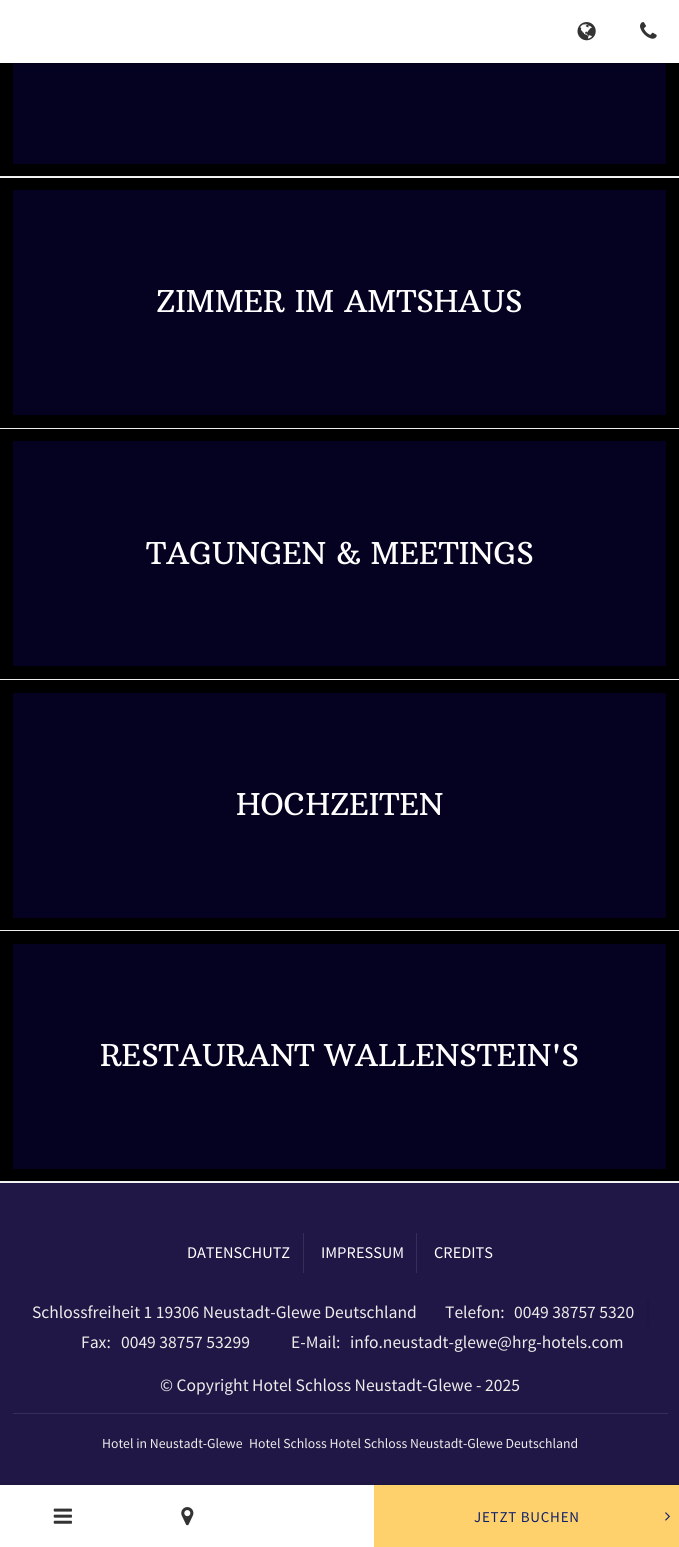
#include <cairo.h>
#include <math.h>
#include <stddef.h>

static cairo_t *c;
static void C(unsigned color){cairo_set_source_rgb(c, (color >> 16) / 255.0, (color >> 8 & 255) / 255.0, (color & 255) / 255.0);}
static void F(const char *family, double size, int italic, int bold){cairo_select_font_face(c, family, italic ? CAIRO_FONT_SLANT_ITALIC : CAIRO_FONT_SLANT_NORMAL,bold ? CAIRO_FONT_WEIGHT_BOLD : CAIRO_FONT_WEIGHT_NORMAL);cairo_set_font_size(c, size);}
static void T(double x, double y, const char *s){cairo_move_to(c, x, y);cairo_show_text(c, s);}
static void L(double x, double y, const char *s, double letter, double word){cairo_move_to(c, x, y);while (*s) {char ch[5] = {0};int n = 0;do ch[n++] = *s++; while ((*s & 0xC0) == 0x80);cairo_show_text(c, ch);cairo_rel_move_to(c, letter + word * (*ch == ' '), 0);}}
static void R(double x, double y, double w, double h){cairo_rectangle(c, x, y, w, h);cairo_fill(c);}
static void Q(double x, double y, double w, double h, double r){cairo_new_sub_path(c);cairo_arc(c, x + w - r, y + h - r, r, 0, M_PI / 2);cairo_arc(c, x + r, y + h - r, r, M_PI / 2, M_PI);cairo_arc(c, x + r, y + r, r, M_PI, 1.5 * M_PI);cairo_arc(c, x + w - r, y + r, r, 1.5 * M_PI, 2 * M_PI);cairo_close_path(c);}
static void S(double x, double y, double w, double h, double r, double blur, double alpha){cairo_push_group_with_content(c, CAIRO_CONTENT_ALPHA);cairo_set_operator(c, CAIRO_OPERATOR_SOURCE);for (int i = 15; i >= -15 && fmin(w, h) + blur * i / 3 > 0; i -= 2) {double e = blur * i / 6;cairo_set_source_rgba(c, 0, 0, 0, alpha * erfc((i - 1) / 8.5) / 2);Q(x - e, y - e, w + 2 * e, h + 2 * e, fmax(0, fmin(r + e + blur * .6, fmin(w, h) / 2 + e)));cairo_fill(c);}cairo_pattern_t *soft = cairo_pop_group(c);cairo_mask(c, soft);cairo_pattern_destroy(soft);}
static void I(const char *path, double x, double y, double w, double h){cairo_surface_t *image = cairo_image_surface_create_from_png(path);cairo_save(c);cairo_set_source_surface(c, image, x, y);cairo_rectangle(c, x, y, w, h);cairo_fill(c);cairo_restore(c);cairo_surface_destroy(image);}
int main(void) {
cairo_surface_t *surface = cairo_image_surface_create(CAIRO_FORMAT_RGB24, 679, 1547);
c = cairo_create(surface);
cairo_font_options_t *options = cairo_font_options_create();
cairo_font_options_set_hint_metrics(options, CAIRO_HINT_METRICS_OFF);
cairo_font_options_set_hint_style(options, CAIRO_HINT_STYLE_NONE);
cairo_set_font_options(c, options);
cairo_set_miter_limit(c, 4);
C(0xf5f5f5);
cairo_paint(c);
C(0x000000);
R(0,63,679,113);
C(0x050120);
R(13,63,653,101);
C(0x000000);
S(0,0,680,63,0,2,.2);
C(0xffffff);
R(0,0,679,63);
I("1.png",577,22,19,19);
I("2.png",640,22,17,17);
C(0xeeeeee);
R(0,176,679,1);
R(0,428,679,1);
C(0x000000);
R(0,178,679,250);
C(0x050120);
R(13,190,653,225);
F("Arbutus Slab",30,0,0);
C(0xffffff);
T(156,312,"ZIMMER IM AMTSHAUS");
C(0xeeeeee);
R(0,679,679,1);
C(0x000000);
R(0,429,679,250);
C(0x050120);
R(13,441,653,225);
C(0xffffff);
T(146,564,"TAGUNGEN & MEETINGS");
C(0xeeeeee);
R(0,930,679,1);
C(0x000000);
R(0,680,679,250);
C(0x050120);
R(13,693,653,225);
C(0xffffff);
T(236,815,"HOCHZEITEN");
C(0xeeeeee);
R(0,1181,679,1);
C(0x000000);
R(0,931,679,250);
C(0x050120);
R(13,944,653,225);
C(0xffffff);
T(100,1066,"RESTAURANT WALLENSTEIN'S");
C(0x201747);
R(0,1183,679,302);
C(0x362e59);
R(303,1233,1,40);
F("Source Sans Pro",16.25,0,0);
C(0xffffff);
T(187,1258,"DATENSCHUTZ");
C(0x362e59);
R(416,1233,1,40);
C(0xffffff);
T(321,1258,"IMPRESSUM");
T(434,1258,"CREDITS");
C(0x362e59);
R(13,1413,655,1);
F("Source Sans Pro",17.5,0,0);
C(0xedece9);
T(32,1318,"Schlossfreiheit 1 19306 Neustadt-Glewe Deutschland");
cairo_new_path(c);
cairo_move_to(c,648,1301);
cairo_line_to(c,648,1324);
C(0x161032);
cairo_set_line_width(c,1.2);
cairo_set_dash(c,(double[]){1.25,1.25},2,0);
cairo_stroke(c);
C(0xedece9);
T(445,1318,"Telefon:");
T(514,1318,"0049 38757 5320");
T(81,1348,"Fax:");
T(121,1348,"0049 38757 53299");
T(291,1348,"E-Mail:");
T(350,1348,"info.neustadt-glewe@hrg-hotels.com");
T(160,1391,"© Copyright Hotel Schloss Neustadt-Glewe - 2025");
F("Source Sans Pro",13.75,0,0);
T(102,1448,"Hotel in Neustadt-Glewe");
T(249,1448,"Hotel Schloss Hotel Schloss Neustadt-Glewe Deutschland");
C(0x000000);
S(0,1485,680,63,0,2,.2);
C(0xffffff);
R(0,1485,374,62);
I("3.png",53,1508,19,16);
I("4.png",181,1507,13,19);
C(0xfed16d);
R(374,1485,305,62);
F("Source Sans Pro",15,0,0);
C(0x0f206c);
L(474,1522,"JETZT BUCHEN",.75,0);
I("5.png",665,1512,5,9);
cairo_surface_write_to_png(surface, "o.png");
cairo_font_options_destroy(options);
cairo_destroy(c);
cairo_surface_destroy(surface);
return 0;
}
